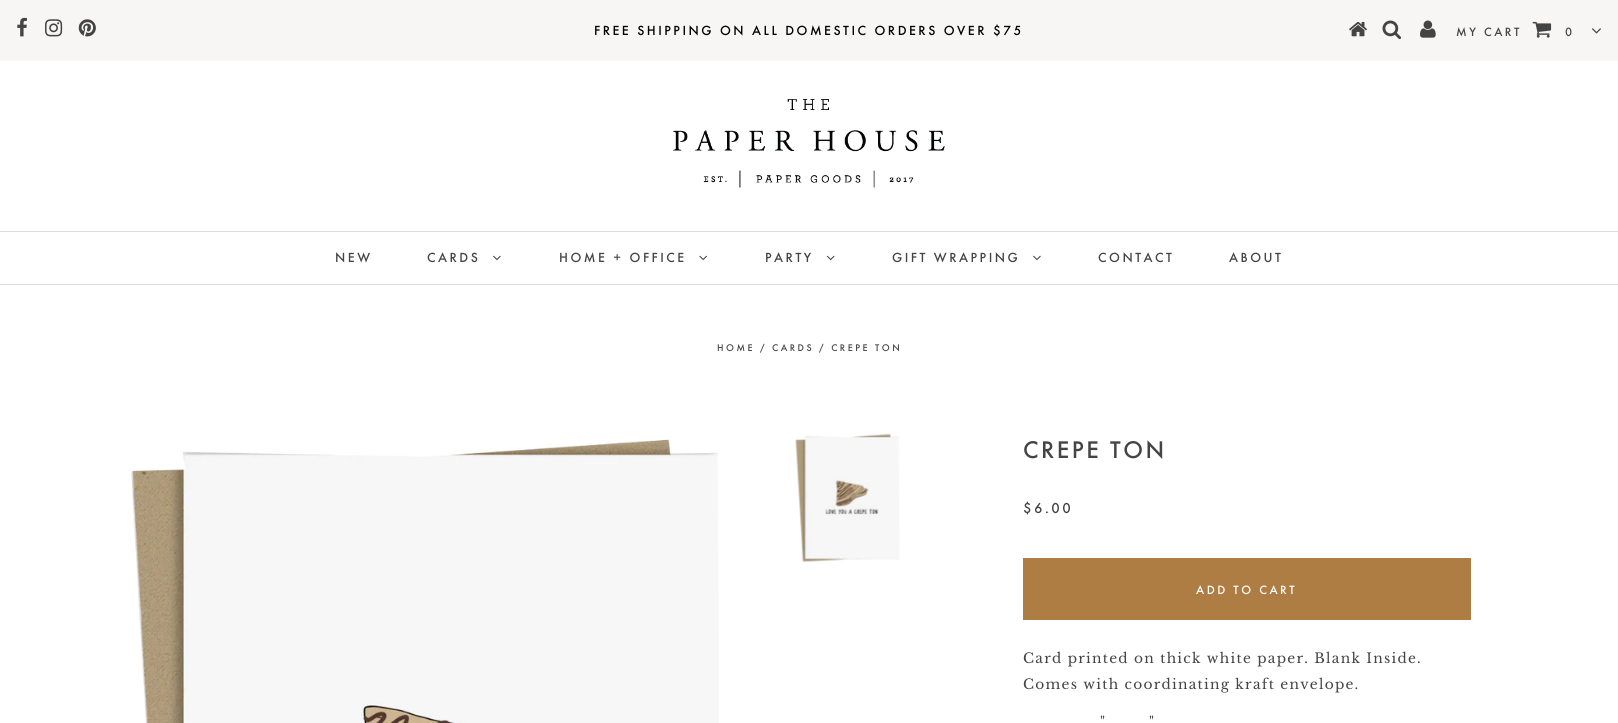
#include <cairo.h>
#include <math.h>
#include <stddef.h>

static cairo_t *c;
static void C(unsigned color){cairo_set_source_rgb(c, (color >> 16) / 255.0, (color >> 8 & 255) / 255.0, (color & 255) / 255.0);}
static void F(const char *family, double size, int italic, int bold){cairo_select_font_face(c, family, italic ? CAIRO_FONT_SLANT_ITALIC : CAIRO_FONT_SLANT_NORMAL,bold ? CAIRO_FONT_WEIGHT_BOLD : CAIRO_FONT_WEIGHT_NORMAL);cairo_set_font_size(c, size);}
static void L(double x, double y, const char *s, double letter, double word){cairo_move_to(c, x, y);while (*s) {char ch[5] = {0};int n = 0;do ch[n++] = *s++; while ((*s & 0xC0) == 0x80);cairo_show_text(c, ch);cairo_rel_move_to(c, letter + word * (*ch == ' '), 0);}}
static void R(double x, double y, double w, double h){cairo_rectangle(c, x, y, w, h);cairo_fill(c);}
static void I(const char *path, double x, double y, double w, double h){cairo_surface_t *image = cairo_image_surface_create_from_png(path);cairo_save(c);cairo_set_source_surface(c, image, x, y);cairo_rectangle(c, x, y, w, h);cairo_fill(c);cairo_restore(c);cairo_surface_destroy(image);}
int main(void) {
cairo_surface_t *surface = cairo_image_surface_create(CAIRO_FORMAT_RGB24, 1618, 723);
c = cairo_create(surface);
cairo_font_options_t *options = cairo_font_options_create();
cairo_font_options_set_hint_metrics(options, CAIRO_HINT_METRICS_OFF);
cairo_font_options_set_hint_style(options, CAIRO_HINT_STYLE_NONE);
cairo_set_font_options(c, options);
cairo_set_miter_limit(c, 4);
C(0xffffff);
cairo_paint(c);
C(0xf7f6f5);
R(0,0,1618,61);
I("1.png",17,17,10,20);
I("2.png",45,19,18,18);
I("3.png",78,19,18,18);
F("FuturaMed",13.75,0,0);
C(0x000000);
L(594,35,"FREE SHIPPING ON ALL DOMESTIC ORDERS OVER $75",2.5,0);
I("4.png",1349,21,18,16);
I("5.png",1382,20,20,20);
I("6.png",1420,20,16,18);
F("FuturaMed",12.5,0,0);
C(0x444444);
L(1456,36,"MY CART",2.5,0);
I("7.png",1532,21,20,17);
L(1565,36,"0",2.5,0);
I("8.png",1592,28,9,6);
I("9.png",673,99,272,89);
C(0xdddddd);
R(0,231,1618,1);
R(0,284,1618,1);
F("FuturaMed",13.75,0,0);
C(0x444444);
L(335,262,"NEW",2.5,0);
L(427,262,"CARDS",2.5,0);
I("10.png",493,255,8,6);
L(559,262,"HOME + OFFICE",2.5,0);
I("11.png",699,255,8,6);
L(765,262,"PARTY",2.5,0);
I("12.png",826,255,9,6);
L(892,262,"GIFT WRAPPING",2.5,0);
I("10.png",1033,255,8,6);
L(1098,262,"CONTACT",2.5,0);
L(1229,262,"ABOUT",2.5,0);
F("FuturaMed",10,0,0);
L(717,351,"HOME / CARDS / CREPE TON",2.5,0);
I("13.png",131,439,588,284);
I("14.png",795,433,105,130);
F("FuturaMed",25,0,0);
L(1023,458,"CREPE TON",2.5,0);
F("FuturaMed",15,0,0);
L(1023,513,"$6.00",2.5,0);
C(0xad7d44);
R(1023,558,448,62);
F("FuturaMed",12.5,0,0);
C(0xffffff);
L(1196,594,"ADD TO CART",2.5,0);
F("Libre Baskerville",13.75,0,0);
C(0x444444);
L(1023,663,"Card printed on thick white paper. Blank Inside.",1.25,0);
L(1023,689,"Comes with coordinating kraft envelope.",1.25,0);
L(1100,727,"\"",1.25,0);
L(1149,727,"\"",1.25,0);
cairo_surface_write_to_png(surface, "o.png");
cairo_font_options_destroy(options);
cairo_destroy(c);
cairo_surface_destroy(surface);
return 0;
}
